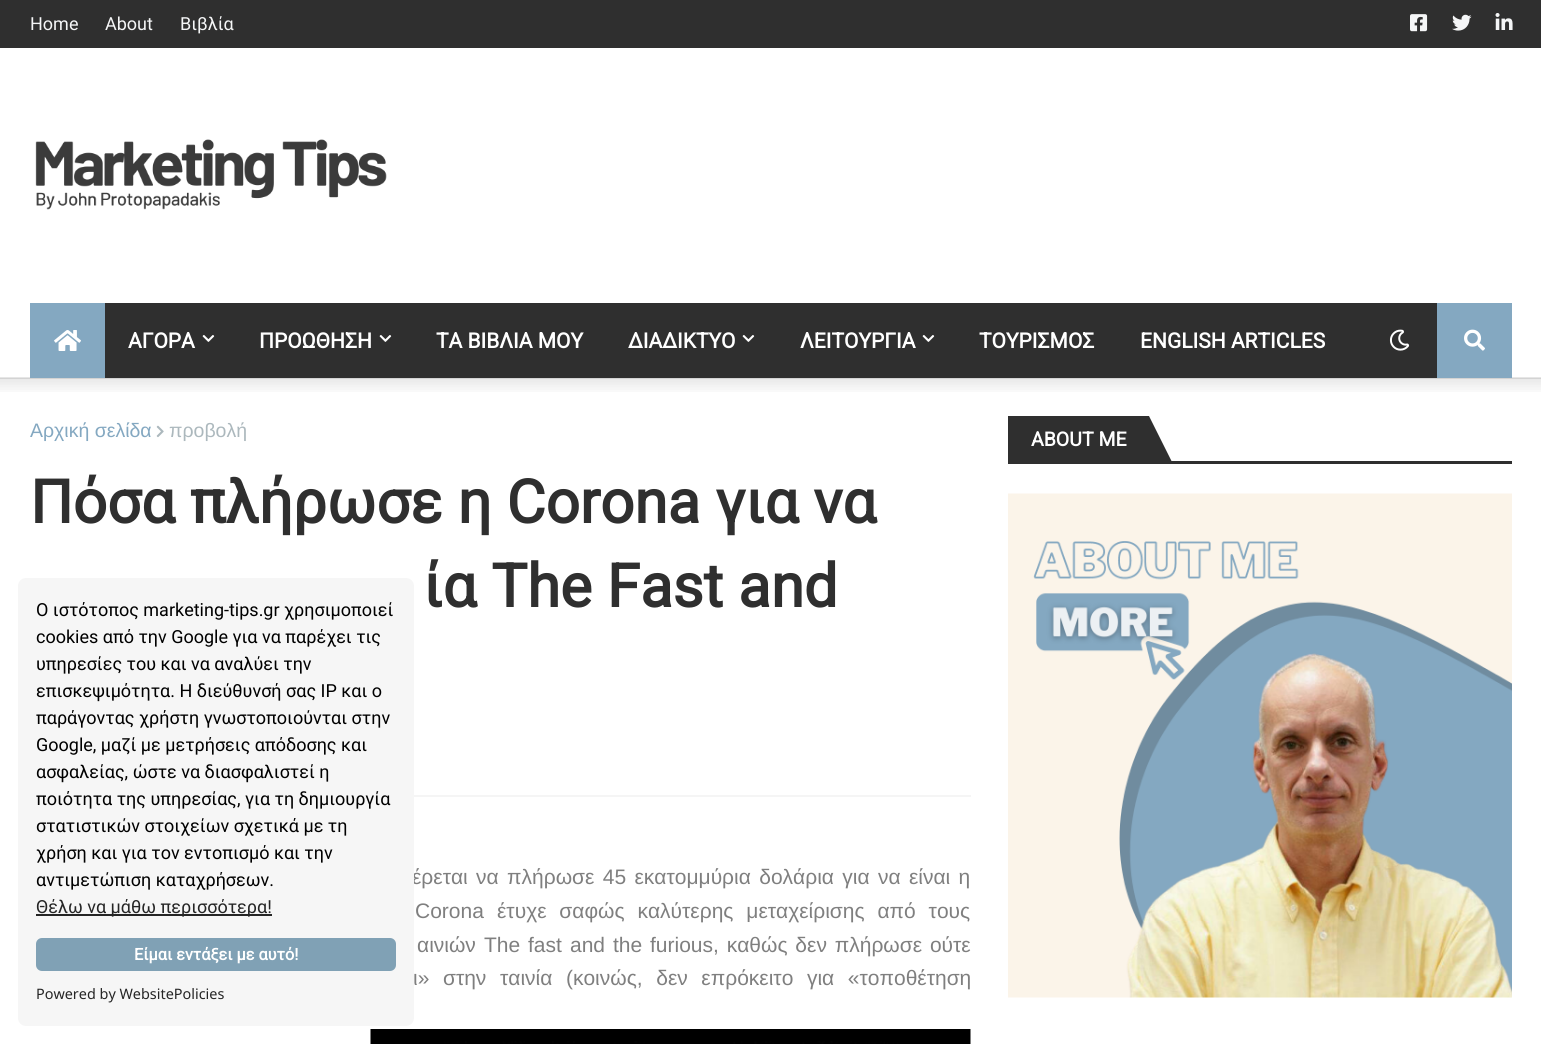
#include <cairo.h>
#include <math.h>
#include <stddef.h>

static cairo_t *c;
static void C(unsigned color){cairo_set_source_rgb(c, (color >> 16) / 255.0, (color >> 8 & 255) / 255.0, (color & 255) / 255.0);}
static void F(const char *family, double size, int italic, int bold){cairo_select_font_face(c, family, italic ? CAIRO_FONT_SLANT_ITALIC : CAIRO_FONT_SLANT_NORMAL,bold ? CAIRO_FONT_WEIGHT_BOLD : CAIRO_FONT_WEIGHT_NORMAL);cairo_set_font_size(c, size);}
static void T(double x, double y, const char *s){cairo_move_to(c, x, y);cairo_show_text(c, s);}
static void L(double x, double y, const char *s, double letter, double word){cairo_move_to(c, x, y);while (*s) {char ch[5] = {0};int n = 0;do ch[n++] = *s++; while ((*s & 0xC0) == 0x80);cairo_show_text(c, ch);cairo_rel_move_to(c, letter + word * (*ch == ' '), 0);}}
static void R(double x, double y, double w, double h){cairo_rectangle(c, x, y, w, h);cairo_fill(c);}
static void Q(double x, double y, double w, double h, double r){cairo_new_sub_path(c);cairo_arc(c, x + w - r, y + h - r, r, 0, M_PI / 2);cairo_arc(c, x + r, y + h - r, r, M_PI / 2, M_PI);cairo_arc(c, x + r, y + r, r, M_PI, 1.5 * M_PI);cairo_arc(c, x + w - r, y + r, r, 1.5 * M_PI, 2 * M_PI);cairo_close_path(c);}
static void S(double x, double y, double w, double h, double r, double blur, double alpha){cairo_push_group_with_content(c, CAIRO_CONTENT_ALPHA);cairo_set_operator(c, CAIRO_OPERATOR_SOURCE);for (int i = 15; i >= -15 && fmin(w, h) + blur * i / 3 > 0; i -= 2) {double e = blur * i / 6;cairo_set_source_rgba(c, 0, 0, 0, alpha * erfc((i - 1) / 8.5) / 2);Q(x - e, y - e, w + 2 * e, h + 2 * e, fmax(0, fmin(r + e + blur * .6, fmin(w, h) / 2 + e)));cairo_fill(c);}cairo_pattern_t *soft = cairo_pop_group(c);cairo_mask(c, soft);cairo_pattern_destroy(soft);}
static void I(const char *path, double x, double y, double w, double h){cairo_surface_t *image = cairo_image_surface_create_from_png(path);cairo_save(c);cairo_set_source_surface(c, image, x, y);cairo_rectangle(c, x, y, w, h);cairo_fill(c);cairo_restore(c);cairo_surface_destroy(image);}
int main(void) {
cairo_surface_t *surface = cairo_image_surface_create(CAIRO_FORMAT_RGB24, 1541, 1044);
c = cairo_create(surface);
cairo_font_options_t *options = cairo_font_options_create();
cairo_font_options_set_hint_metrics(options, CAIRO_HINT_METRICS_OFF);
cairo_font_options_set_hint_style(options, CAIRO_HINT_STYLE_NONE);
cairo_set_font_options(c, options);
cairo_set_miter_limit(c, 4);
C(0xffffff);
cairo_paint(c);
cairo_save(c);
cairo_rectangle(c,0,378,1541,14);
cairo_clip(c);
C(0x000000);
S(-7,-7,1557,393,0,7.5,.1);
cairo_restore(c);
C(0x2f2f2f);
R(0,0,1541,48);
F("Roboto",18,0,0);
C(0xf5f6f7);
T(30,30,"Home");
T(105,30,"About");
T(180,30,"Βιβλία");
I("1.png",1410,14,18,18);
I("2.png",1452,14,20,17);
I("3.png",1495,13,18,17);
I("4.png",35,139,352,71);
cairo_set_source_rgba(c,0,0,0,0.1);
R(0,377,1541,2);
C(0x2f2f2f);
R(105,303,1332,75);
C(0x84a8c1);
R(30,303,75,75);
I("5.png",54,330,27,21);
F("Roboto",21,0,1);
C(0xffffff);
T(128,348,"ΑΓΟΡΑ");
I("6.png",202,335,13,7);
T(259,348,"ΠΡΟΩΘΗΣΗ");
I("6.png",379,335,13,7);
T(436,348,"ΤΑ ΒΙΒΛΙΑ ΜΟΥ");
T(628,348,"ΔΙΑΔΙΚΤΥΟ");
I("6.png",742,335,13,7);
T(800,348,"ΛΕΙΤΟΥΡΓΙΑ");
I("6.png",922,335,13,7);
T(979,348,"ΤΟΥΡΙΣΜΟΣ");
T(1140,348,"ENGLISH ARTICLES");
I("7.png",1389,329,21,22);
C(0x84a8c1);
R(1437,303,75,75);
I("8.png",1464,329,21,22);
C(0xf5f5f5);
R(414,795,557,2);
F("Liberation Sans",19.5,0,0);
C(0x84a8c1);
T(30,437,"Αρχική σελίδα");
I("9.png",156,425,8,13);
C(0xacb8bd);
T(169,437,"προβολή");
F("Roboto",60,0,1);
C(0x2f2f2f);
T(30,523,"Πόσα πλήρωσε η Corona για να");
T(423,607,"ία The Fast and");
F("Liberation Sans",21,0,0);
C(0x7f7f7f);
L(412,884,"έρεται να πλήρωσε 45 εκατομμύρια δολάρια για να είναι η",0,2.5);
T(415,918,"Corona");
L(497,918,"έτυχε σαφώς καλύτερης μεταχείρισης από τους",0,7);
L(417,952,"αινιών",0,2);
T(484,952,"The");
T(528,952,"fast");
T(570,952,"and");
T(613,952,"the");
T(650,952,"furious");
L(713,952,", καθώς δεν πλήρωσε ούτε",0,2);
L(413,985,"ι» στην ταινία (κοινώς, δεν επρόκειτο για «τοποθέτηση",0,7.75);
I("10.png",370,1029,601,15);
C(0x2f2f2f);
R(1171,461,341,3);
R(1008,416,141,48);
F("Roboto",19.5,0,1);
C(0xffffff);
T(1031,446,"ABOUT ME");
C(0x2f2f2f);
cairo_new_path(c);
cairo_move_to(c,1149,464);
cairo_line_to(c,1149,416);
cairo_line_to(c,1173,464);
cairo_close_path(c);
cairo_fill(c);
I("11.png",1008,493,504,505);
C(0xf6f6f6);
Q(18,578,396,448,8);
cairo_fill(c);
F("Roboto",18,0,0);
C(0x000000);
T(36,616,"Ο ιστότοπος marketing-tips.gr χρησιμοποιεί");
T(36,643,"cookies από την Google για να παρέχει τις");
T(36,670,"υπηρεσίες του και να αναλύει την");
T(36,697,"επισκεψιμότητα. Η διεύθυνσή σας IP και ο");
T(36,724,"παράγοντας χρήστη γνωστοποιούνται στην");
T(36,751,"Google, μαζί με μετρήσεις απόδοσης και");
T(36,778,"ασφαλείας, ώστε να διασφαλιστεί η");
T(36,805,"ποιότητα της υπηρεσίας, για τη δημιουργία");
T(36,832,"στατιστικών στοιχείων σχετικά με τη");
T(36,859,"χρήση και για τον εντοπισμό και την");
T(36,886,"αντιμετώπιση καταχρήσεων.");
C(0x252525);
R(36,914,236,2);
T(36,913,"Θέλω να μάθω περισσότερα!");
C(0x80a1b5);
Q(36,938,360,33,6);
cairo_fill(c);
F("Roboto",16.25,0,1);
C(0xffffff);
T(134,960,"Είμαι εντάξει με αυτό!");
F("Noto Sans",14.4,0,0);
C(0x252525);
T(36,999,"Powered by WebsitePolicies");
cairo_surface_write_to_png(surface, "o.png");
cairo_font_options_destroy(options);
cairo_destroy(c);
cairo_surface_destroy(surface);
return 0;
}
